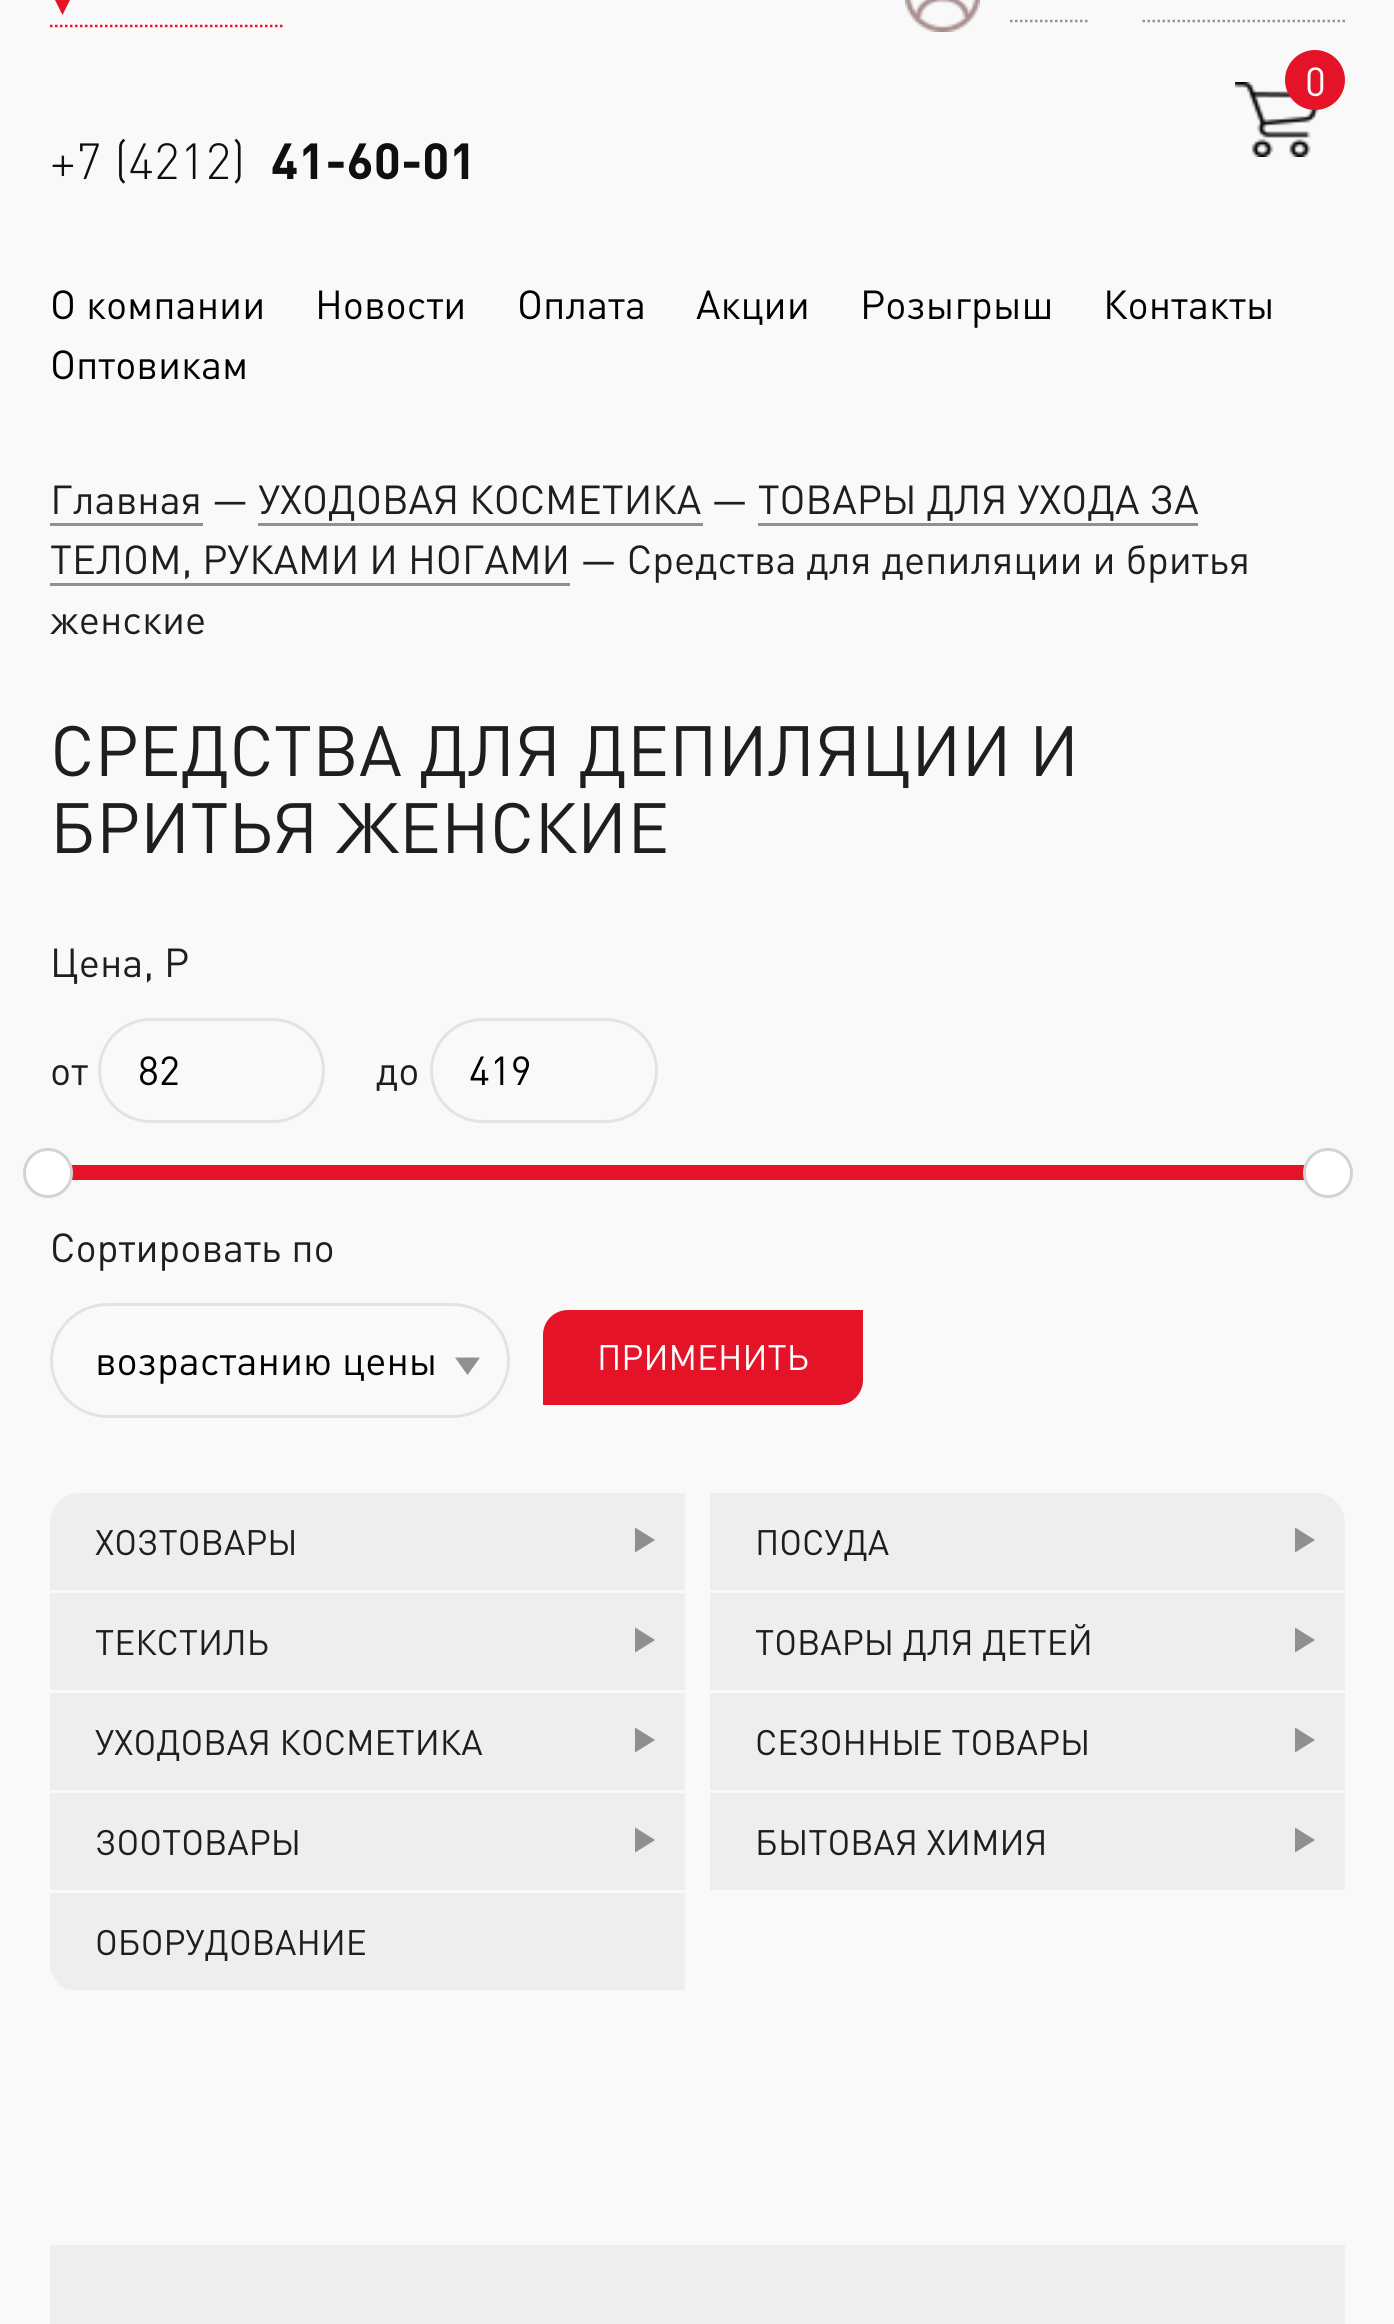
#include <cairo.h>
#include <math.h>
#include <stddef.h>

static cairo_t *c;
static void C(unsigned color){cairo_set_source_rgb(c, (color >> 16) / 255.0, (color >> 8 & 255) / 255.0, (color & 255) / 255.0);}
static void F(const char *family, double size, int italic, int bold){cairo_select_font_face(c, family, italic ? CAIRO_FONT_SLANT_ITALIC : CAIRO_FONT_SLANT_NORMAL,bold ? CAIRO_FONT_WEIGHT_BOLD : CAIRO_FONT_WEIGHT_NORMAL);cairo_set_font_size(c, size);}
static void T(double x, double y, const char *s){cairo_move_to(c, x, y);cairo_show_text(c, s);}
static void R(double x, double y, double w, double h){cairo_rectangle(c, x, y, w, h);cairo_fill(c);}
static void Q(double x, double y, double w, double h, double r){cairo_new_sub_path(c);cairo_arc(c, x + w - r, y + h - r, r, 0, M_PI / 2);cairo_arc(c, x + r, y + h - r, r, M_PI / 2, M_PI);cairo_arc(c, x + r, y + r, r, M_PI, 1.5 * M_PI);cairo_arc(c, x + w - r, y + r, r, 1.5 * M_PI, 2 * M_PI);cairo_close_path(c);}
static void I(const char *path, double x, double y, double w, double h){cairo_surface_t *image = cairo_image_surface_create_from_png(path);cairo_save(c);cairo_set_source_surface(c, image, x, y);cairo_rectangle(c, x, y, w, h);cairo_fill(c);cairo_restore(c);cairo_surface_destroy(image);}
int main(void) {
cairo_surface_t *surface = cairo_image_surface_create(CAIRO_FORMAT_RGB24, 1394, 2324);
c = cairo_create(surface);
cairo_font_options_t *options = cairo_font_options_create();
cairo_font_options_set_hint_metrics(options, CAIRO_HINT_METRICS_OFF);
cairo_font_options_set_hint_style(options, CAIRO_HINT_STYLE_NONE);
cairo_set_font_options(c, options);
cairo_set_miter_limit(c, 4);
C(0xf9f9f9);
cairo_paint(c);
cairo_new_path(c);
cairo_move_to(c,50,26);
cairo_line_to(c,285,26);
C(0xe51328);
cairo_set_line_width(c,2.5);
cairo_set_dash(c,(double[]){2.5,2.5},2,0);
cairo_stroke(c);
cairo_new_path(c);
cairo_move_to(c,50,-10);
cairo_line_to(c,75,-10);
cairo_line_to(c,62.5,15);
cairo_close_path(c);
cairo_fill(c);
I("1.png",905,0,75,32);
cairo_new_path(c);
cairo_move_to(c,1010,21);
cairo_line_to(c,1087.5,21);
C(0x939393);
cairo_stroke(c);
cairo_new_path(c);
cairo_move_to(c,1142.5,21);
cairo_line_to(c,1345,21);
cairo_stroke(c);
I("2.png",1235,82,84,75);
C(0xe51328);
cairo_arc(c,1315,80,30,0,2 * M_PI);
cairo_fill(c);
F("DIN",40,0,0);
C(0xffffff);
T(1305,96,"0");
F("DIN Light",50,0,0);
C(0x0f0f0f);
T(50,179,"+7 (4212)");
F("DIN",50,0,1);
T(271,179,"41-60-01");
F("DIN",40,0,0);
C(0x000000);
T(50,319,"О компании");
T(315,319,"Новости");
T(517,319,"Оплата");
T(696,319,"Акции");
T(860,319,"Розыгрыш");
T(1103,319,"Контакты");
T(50,379,"Оптовикам");
C(0x1e1e1e);
T(50,514,"Главная — УХОДОВАЯ КОСМЕТИКА — ТОВАРЫ ДЛЯ УХОДА ЗА");
C(0x8e9192);
R(50,523,153,3);
R(258,523,445,3);
C(0x1e1e1e);
T(50,574,"ТЕЛОМ, РУКАМИ И НОГАМИ — Средства для депиляции и бритья");
C(0x8e9192);
R(758,523,440,3);
R(50,583,520,3);
C(0x1e1e1e);
T(50,634,"женские");
F("DIN",70,0,0);
T(50,776,"СРЕДСТВА ДЛЯ ДЕПИЛЯЦИИ И");
T(50,853,"БРИТЬЯ ЖЕНСКИЕ");
F("DIN",40,0,0);
T(50,977,"Цена, Р");
T(50,1085,"от");
Q(99.5,1019.5,224,102,51);
C(0xe3e3e3);
cairo_set_line_width(c,3);
cairo_set_dash(c,NULL,0,0);
cairo_stroke(c);
C(0x000000);
T(138,1085,"82");
C(0x1e1e1e);
T(376,1085,"до");
Q(431.5,1019.5,225,102,51);
C(0xe3e3e3);
cairo_stroke(c);
C(0x000000);
T(469,1085,"419");
C(0xe51328);
R(71,1165,1234,15);
C(0xffffff);
cairo_new_path(c);
cairo_arc(c,48,1173,23.5,0,2 * M_PI);
cairo_fill_preserve(c);
C(0xd3d3d3);
cairo_stroke(c);
C(0xffffff);
cairo_arc(c,1328,1173,23.5,0,2 * M_PI);
cairo_fill_preserve(c);
C(0xd3d3d3);
cairo_stroke(c);
C(0x1e1e1e);
T(50,1262,"Сортировать по");
Q(51.5,1304.5,457,112,56);
C(0xe3e3e3);
cairo_stroke(c);
C(0x000000);
T(95,1375,"возрастанию цены");
C(0x909090);
cairo_new_path(c);
cairo_move_to(c,455,1357.5);
cairo_line_to(c,480,1357.5);
cairo_line_to(c,467.5,1375);
cairo_close_path(c);
cairo_fill(c);
C(0xe51328);
cairo_new_path(c);
cairo_move_to(c,568,1312.5);
cairo_line_to(c,860.5,1312.5);
cairo_line_to(c,860.5,1380);
cairo_curve_to(c,860.5,1392.5,850.5,1402.5,838,1402.5);
cairo_line_to(c,545.5,1402.5);
cairo_line_to(c,545.5,1335);
cairo_curve_to(c,545.5,1322.5,555.5,1312.5,568,1312.5);
cairo_close_path(c);
cairo_fill_preserve(c);
cairo_set_line_width(c,5);
cairo_stroke(c);
F("DIN",35,0,0);
C(0xffffff);
T(597,1370,"ПРИМЕНИТЬ");
C(0xeeeeee);
cairo_new_path(c);
cairo_move_to(c,80,1493);
cairo_line_to(c,685,1493);
cairo_line_to(c,685,1590);
cairo_line_to(c,50,1590);
cairo_line_to(c,50,1523);
cairo_curve_to(c,50,1506.5,63.5,1493,80,1493);
cairo_close_path(c);
cairo_fill(c);
C(0x1e1e1e);
T(95,1555,"ХОЗТОВАРЫ");
C(0x8f8f8f);
cairo_new_path(c);
cairo_move_to(c,635,1552.5);
cairo_line_to(c,635,1527.5);
cairo_line_to(c,655,1540);
cairo_close_path(c);
cairo_fill(c);
C(0xeeeeee);
cairo_new_path(c);
cairo_move_to(c,710,1493);
cairo_line_to(c,1315,1493);
cairo_curve_to(c,1331.5,1493,1345,1506.5,1345,1523);
cairo_line_to(c,1345,1590);
cairo_line_to(c,710,1590);
cairo_close_path(c);
cairo_fill(c);
C(0x1e1e1e);
T(755,1555,"ПОСУДА");
C(0x8f8f8f);
cairo_new_path(c);
cairo_move_to(c,1295,1552.5);
cairo_line_to(c,1295,1527.5);
cairo_line_to(c,1315,1540);
cairo_close_path(c);
cairo_fill(c);
C(0xeeeeee);
R(50,1593,635,97);
C(0x1e1e1e);
T(95,1655,"ТЕКСТИЛЬ");
C(0x8f8f8f);
cairo_new_path(c);
cairo_move_to(c,635,1652.5);
cairo_line_to(c,635,1627.5);
cairo_line_to(c,655,1640);
cairo_close_path(c);
cairo_fill(c);
C(0xeeeeee);
R(710,1593,635,97);
C(0x1e1e1e);
T(755,1655,"ТОВАРЫ ДЛЯ ДЕТЕЙ");
C(0x8f8f8f);
cairo_new_path(c);
cairo_move_to(c,1295,1652.5);
cairo_line_to(c,1295,1627.5);
cairo_line_to(c,1315,1640);
cairo_close_path(c);
cairo_fill(c);
C(0xeeeeee);
R(50,1693,635,97);
C(0x1e1e1e);
T(95,1755,"УХОДОВАЯ КОСМЕТИКА");
C(0x8f8f8f);
cairo_new_path(c);
cairo_move_to(c,635,1752.5);
cairo_line_to(c,635,1727.5);
cairo_line_to(c,655,1740);
cairo_close_path(c);
cairo_fill(c);
C(0xeeeeee);
R(710,1693,635,97);
C(0x1e1e1e);
T(755,1755,"СЕЗОННЫЕ ТОВАРЫ");
C(0x8f8f8f);
cairo_new_path(c);
cairo_move_to(c,1295,1752.5);
cairo_line_to(c,1295,1727.5);
cairo_line_to(c,1315,1740);
cairo_close_path(c);
cairo_fill(c);
C(0xeeeeee);
R(50,1793,635,97);
C(0x1e1e1e);
T(95,1855,"ЗООТОВАРЫ");
C(0x8f8f8f);
cairo_new_path(c);
cairo_move_to(c,635,1852.5);
cairo_line_to(c,635,1827.5);
cairo_line_to(c,655,1840);
cairo_close_path(c);
cairo_fill(c);
C(0xeeeeee);
R(710,1793,635,97);
C(0x1e1e1e);
T(755,1855,"БЫТОВАЯ ХИМИЯ");
C(0x8f8f8f);
cairo_new_path(c);
cairo_move_to(c,1295,1852.5);
cairo_line_to(c,1295,1827.5);
cairo_line_to(c,1315,1840);
cairo_close_path(c);
cairo_fill(c);
cairo_save(c);
Q(50,1493,1295,500,30);
cairo_clip(c);
C(0xeeeeee);
R(50,1893,635,97);
cairo_restore(c);
C(0x1e1e1e);
T(95,1955,"ОБОРУДОВАНИЕ");
C(0xeeeeee);
R(50,2245,1295,79);
cairo_surface_write_to_png(surface, "o.png");
cairo_font_options_destroy(options);
cairo_destroy(c);
cairo_surface_destroy(surface);
return 0;
}
